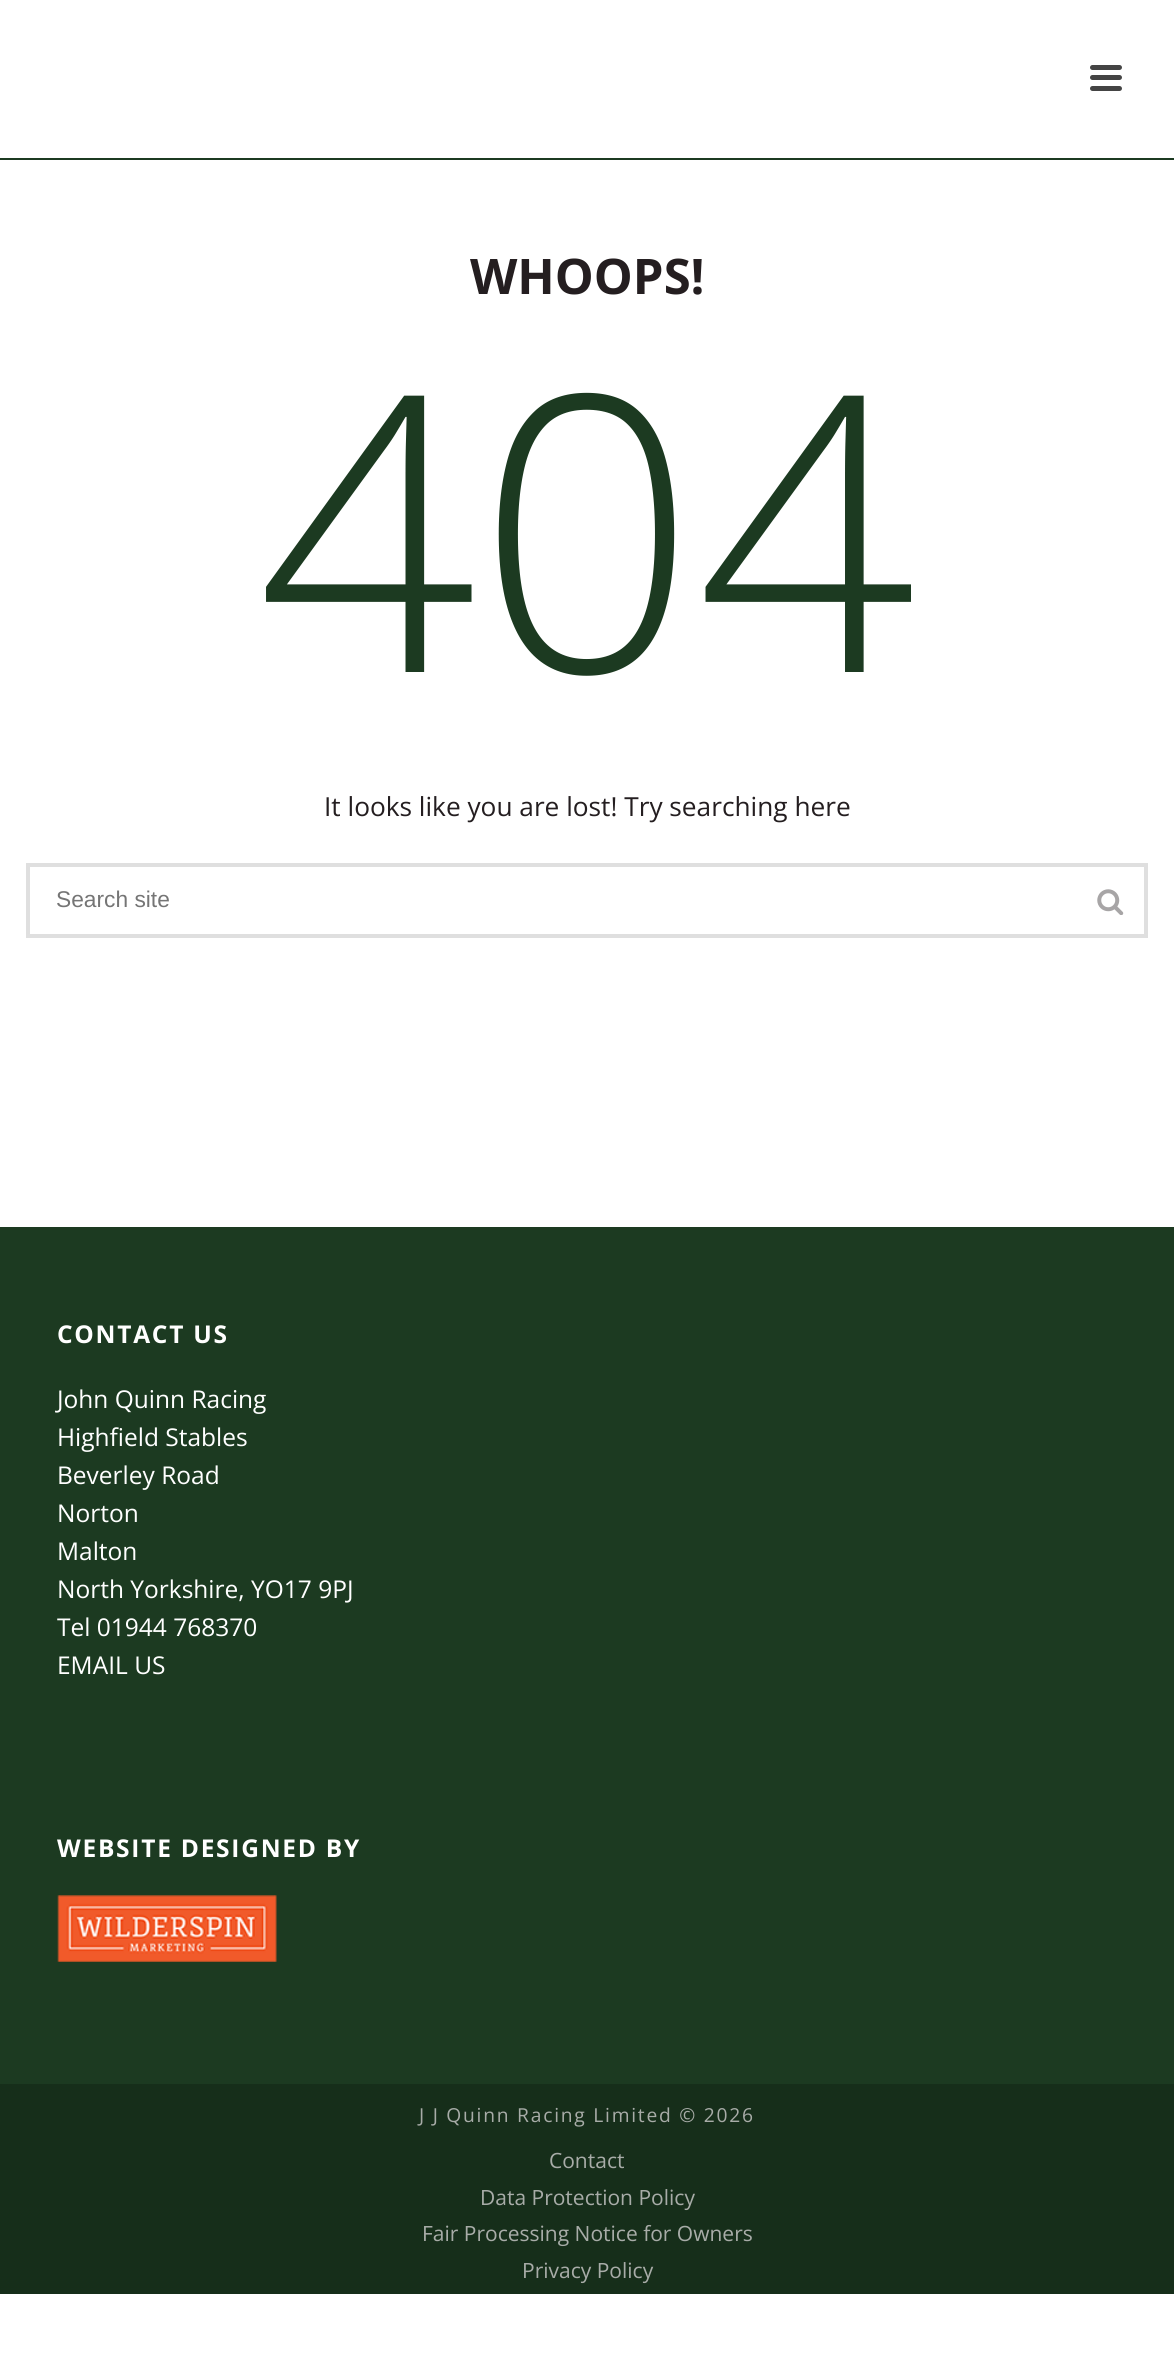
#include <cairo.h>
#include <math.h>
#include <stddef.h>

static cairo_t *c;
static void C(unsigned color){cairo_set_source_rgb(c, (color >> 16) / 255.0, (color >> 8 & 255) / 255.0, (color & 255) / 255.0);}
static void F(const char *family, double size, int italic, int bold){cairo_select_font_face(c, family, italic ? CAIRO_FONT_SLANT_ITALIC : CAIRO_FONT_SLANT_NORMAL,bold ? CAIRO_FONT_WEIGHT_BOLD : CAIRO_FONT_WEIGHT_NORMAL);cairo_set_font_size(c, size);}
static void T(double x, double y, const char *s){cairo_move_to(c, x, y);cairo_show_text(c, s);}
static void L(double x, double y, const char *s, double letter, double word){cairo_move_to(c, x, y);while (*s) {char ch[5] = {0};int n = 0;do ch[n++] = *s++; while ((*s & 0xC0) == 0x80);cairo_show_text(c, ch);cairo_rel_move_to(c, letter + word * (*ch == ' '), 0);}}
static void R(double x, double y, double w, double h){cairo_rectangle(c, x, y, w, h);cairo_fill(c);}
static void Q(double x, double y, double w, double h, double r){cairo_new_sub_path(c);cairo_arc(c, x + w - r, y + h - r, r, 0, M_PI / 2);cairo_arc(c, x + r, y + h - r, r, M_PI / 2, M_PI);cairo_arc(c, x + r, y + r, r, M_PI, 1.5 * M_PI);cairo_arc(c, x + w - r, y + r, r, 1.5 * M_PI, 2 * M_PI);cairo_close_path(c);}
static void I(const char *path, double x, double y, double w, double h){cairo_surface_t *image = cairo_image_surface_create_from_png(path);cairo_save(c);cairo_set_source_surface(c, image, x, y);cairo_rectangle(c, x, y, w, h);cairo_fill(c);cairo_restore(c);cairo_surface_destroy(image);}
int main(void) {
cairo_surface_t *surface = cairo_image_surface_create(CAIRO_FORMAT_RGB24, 1174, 2354);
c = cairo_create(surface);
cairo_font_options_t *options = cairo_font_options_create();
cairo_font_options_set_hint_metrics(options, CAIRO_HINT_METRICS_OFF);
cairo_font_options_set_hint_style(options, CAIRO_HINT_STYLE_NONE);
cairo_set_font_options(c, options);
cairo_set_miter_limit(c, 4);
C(0xffffff);
cairo_paint(c);
C(0x1c3a21);
R(0,158,1174,2);
C(0x444444);
Q(1090,65,32,5,2.5);
cairo_fill(c);
Q(1090,75,32,5,2.5);
cairo_fill(c);
Q(1090,86,32,5,2.5);
cairo_fill(c);
F("Open Sans",49,0,1);
C(0x241e20);
T(470,294,"WHOOPS!");
F("Open Sans Light",385,0,0);
C(0x1c3a21);
T(257,672,"404");
F("Open Sans",26.25,0,0);
C(0x241e20);
T(324,816,"It looks like you are lost! Try searching here");
cairo_rectangle(c,28,865,1118,71);
C(0xdfdfdf);
cairo_set_line_width(c,4);
cairo_stroke(c);
F("Liberation Sans",22.75,0,0);
C(0x757575);
T(56,907,"Search site");
I("1.png",1097,889,27,26);
C(0x1c3a21);
R(0,1227,1174,857);
F("Open Sans",24.5,0,1);
C(0xffffff);
L(57,1343,"CONTACT US",1.75,0);
F("Open Sans",24.5,0,0);
T(57,1408,"John Quinn Racing");
T(57,1446,"Highfield Stables");
T(57,1484,"Beverley Road");
T(57,1522,"Norton");
T(57,1560,"Malton");
T(57,1598,"North Yorkshire, YO17 9PJ");
T(57,1636,"Tel 01944 768370");
T(57,1674,"EMAIL US");
F("Open Sans",24.5,0,1);
L(57,1857,"WEBSITE DESIGNED BY",1.75,0);
I("2.png",57,1895,220,67);
C(0x162e1a);
R(0,2084,1174,210);
F("Open Sans",19.25,0,0);
C(0xa8aca8);
L(419,2122,"J J Quinn Racing Limited © 2026",1.75,0);
F("Open Sans",21,0,0);
T(549,2168,"Contact");
T(480,2205,"Data Protection Policy");
T(422,2241,"Fair Processing Notice for Owners");
T(522,2278,"Privacy Policy");
cairo_surface_write_to_png(surface, "o.png");
cairo_font_options_destroy(options);
cairo_destroy(c);
cairo_surface_destroy(surface);
return 0;
}
